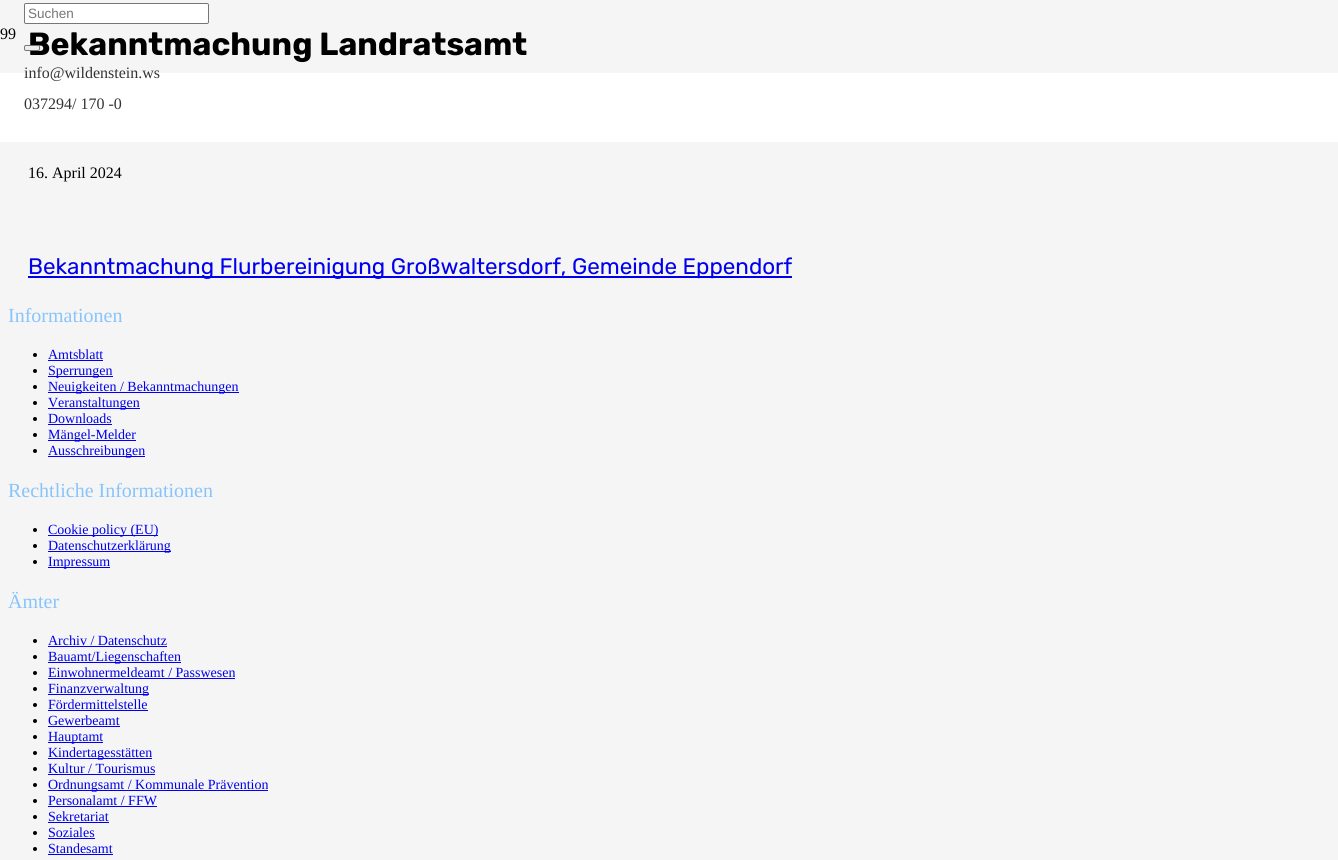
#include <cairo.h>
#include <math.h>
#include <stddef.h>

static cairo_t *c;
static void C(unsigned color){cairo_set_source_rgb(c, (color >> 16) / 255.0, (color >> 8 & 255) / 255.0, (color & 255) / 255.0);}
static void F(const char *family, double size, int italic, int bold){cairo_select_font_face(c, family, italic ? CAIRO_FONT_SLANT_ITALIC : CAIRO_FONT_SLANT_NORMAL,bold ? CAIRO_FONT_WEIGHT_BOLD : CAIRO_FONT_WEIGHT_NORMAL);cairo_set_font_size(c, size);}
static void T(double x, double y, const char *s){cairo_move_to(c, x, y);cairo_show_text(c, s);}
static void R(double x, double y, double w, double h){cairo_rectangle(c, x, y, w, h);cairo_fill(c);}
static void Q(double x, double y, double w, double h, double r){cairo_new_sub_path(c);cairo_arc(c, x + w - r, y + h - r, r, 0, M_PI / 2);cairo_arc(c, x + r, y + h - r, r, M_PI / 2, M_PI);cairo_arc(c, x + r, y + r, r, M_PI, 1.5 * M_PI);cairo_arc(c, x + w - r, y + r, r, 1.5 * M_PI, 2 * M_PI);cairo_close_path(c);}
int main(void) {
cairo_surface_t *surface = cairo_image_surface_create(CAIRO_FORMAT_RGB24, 1338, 860);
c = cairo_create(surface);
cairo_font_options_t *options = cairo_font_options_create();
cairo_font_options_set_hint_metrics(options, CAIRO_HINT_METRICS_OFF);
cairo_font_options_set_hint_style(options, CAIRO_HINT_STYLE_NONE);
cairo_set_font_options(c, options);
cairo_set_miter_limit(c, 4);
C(0xf5f5f5);
cairo_paint(c);
F("Liberation Serif",16,0,0);
C(0x000000);
T(0,39,"99");
C(0xffffff);
Q(24.5,3.5,184,20,1.5);
cairo_fill_preserve(c);
C(0x767676);
cairo_set_line_width(c,1);
cairo_stroke(c);
F("Liberation Sans",13.5,0,0);
C(0x757575);
T(28,18,"Suchen");
F("Rubik",32,0,1);
C(0x000000);
T(28,55,"Bekanntmachung Landratsamt");
C(0xefefef);
Q(24.5,45.5,15,5,1.5);
cairo_fill_preserve(c);
C(0x767676);
cairo_stroke(c);
C(0xffffff);
R(0,73,1338,69);
F("Liberation Serif",16,0,0);
C(0x333333);
T(24,78,"info@wildenstein.ws");
T(24,109,"037294/ 170 -0");
C(0x000000);
T(28,178,"16. April 2024");
C(0x0000ee);
R(28,276,764,2);
F("Rubik",22.4,0,0);
T(28,274,"Bekanntmachung Flurbereinigung Großwaltersdorf, Gemeinde Eppendorf");
F("Liberation Serif",20,0,0);
C(0x88c4fc);
T(8,322,"Informationen");
C(0x000000);
cairo_new_path(c);
cairo_arc(c,35,355,2,0,2 * M_PI);
cairo_fill(c);
F("Liberation Serif",14,0,0);
C(0x0000ee);
T(48,359,"Amtsblatt");
R(48,360,55,1);
C(0x000000);
cairo_new_path(c);
cairo_arc(c,35,371,2,0,2 * M_PI);
cairo_fill(c);
C(0x0000ee);
R(48,376,65,1);
T(48,375,"Sperrungen");
C(0x000000);
cairo_new_path(c);
cairo_arc(c,35,387,2,0,2 * M_PI);
cairo_fill(c);
C(0x0000ee);
R(48,392,191,1);
T(48,391,"Neuigkeiten / Bekanntmachungen");
C(0x000000);
cairo_new_path(c);
cairo_arc(c,35,403,2,0,2 * M_PI);
cairo_fill(c);
C(0x0000ee);
R(48,408,92,1);
T(48,407,"Veranstaltungen");
C(0x000000);
cairo_new_path(c);
cairo_arc(c,35,419,2,0,2 * M_PI);
cairo_fill(c);
C(0x0000ee);
T(48,423,"Downloads");
R(48,424,64,1);
C(0x000000);
cairo_new_path(c);
cairo_arc(c,35,435,2,0,2 * M_PI);
cairo_fill(c);
C(0x0000ee);
R(48,440,88,1);
T(48,439,"Mängel-Melder");
C(0x000000);
cairo_new_path(c);
cairo_arc(c,35,451,2,0,2 * M_PI);
cairo_fill(c);
C(0x0000ee);
R(48,456,97,1);
T(48,455,"Ausschreibungen");
F("Liberation Serif",20,0,0);
C(0x88c4fc);
T(8,497,"Rechtliche Informationen");
C(0x000000);
cairo_new_path(c);
cairo_arc(c,35,530,2,0,2 * M_PI);
cairo_fill(c);
C(0x0000ee);
R(48,535,110,1);
F("Liberation Serif",14,0,0);
T(48,534,"Cookie policy (EU)");
C(0x000000);
cairo_new_path(c);
cairo_arc(c,35,546,2,0,2 * M_PI);
cairo_fill(c);
C(0x0000ee);
R(48,551,123,1);
T(48,550,"Datenschutzerklärung");
C(0x000000);
cairo_new_path(c);
cairo_arc(c,35,562,2,0,2 * M_PI);
cairo_fill(c);
C(0x0000ee);
R(48,567,62,1);
T(48,566,"Impressum");
F("Liberation Serif",20,0,0);
C(0x88c4fc);
T(8,608,"Ämter");
C(0x000000);
cairo_new_path(c);
cairo_arc(c,35,641,2,0,2 * M_PI);
cairo_fill(c);
F("Liberation Serif",14,0,0);
C(0x0000ee);
T(48,645,"Archiv / Datenschutz");
R(48,646,119,1);
C(0x000000);
cairo_new_path(c);
cairo_arc(c,35,657,2,0,2 * M_PI);
cairo_fill(c);
C(0x0000ee);
R(48,662,133,1);
T(48,661,"Bauamt/Liegenschaften");
C(0x000000);
cairo_new_path(c);
cairo_arc(c,35,673,2,0,2 * M_PI);
cairo_fill(c);
C(0x0000ee);
T(48,677,"Einwohnermeldeamt / Passwesen");
R(48,678,187,1);
C(0x000000);
cairo_new_path(c);
cairo_arc(c,35,689,2,0,2 * M_PI);
cairo_fill(c);
C(0x0000ee);
R(48,694,101,1);
T(48,693,"Finanzverwaltung");
C(0x000000);
cairo_new_path(c);
cairo_arc(c,35,705,2,0,2 * M_PI);
cairo_fill(c);
C(0x0000ee);
T(48,709,"Fördermittelstelle");
R(48,710,100,1);
C(0x000000);
cairo_new_path(c);
cairo_arc(c,35,721,2,0,2 * M_PI);
cairo_fill(c);
C(0x0000ee);
T(48,725,"Gewerbeamt");
R(48,726,72,1);
C(0x000000);
cairo_new_path(c);
cairo_arc(c,35,737,2,0,2 * M_PI);
cairo_fill(c);
C(0x0000ee);
R(48,742,55,1);
T(48,741,"Hauptamt");
C(0x000000);
cairo_new_path(c);
cairo_arc(c,35,753,2,0,2 * M_PI);
cairo_fill(c);
C(0x0000ee);
R(48,758,104,1);
T(48,757,"Kindertagesstätten");
C(0x000000);
cairo_new_path(c);
cairo_arc(c,35,769,2,0,2 * M_PI);
cairo_fill(c);
C(0x0000ee);
T(48,773,"Kultur / Tourismus");
R(48,774,107,1);
C(0x000000);
cairo_new_path(c);
cairo_arc(c,35,785,2,0,2 * M_PI);
cairo_fill(c);
C(0x0000ee);
R(48,790,220,1);
T(48,789,"Ordnungsamt / Kommunale Prävention");
C(0x000000);
cairo_new_path(c);
cairo_arc(c,35,801,2,0,2 * M_PI);
cairo_fill(c);
C(0x0000ee);
T(48,805,"Personalamt / FFW");
R(48,806,109,1);
C(0x000000);
cairo_new_path(c);
cairo_arc(c,35,817,2,0,2 * M_PI);
cairo_fill(c);
C(0x0000ee);
T(48,821,"Sekretariat");
R(48,822,61,1);
C(0x000000);
cairo_new_path(c);
cairo_arc(c,35,833,2,0,2 * M_PI);
cairo_fill(c);
C(0x0000ee);
T(48,837,"Soziales");
R(48,838,47,1);
C(0x000000);
cairo_new_path(c);
cairo_arc(c,35,849,2,0,2 * M_PI);
cairo_fill(c);
C(0x0000ee);
T(48,853,"Standesamt");
R(48,854,65,1);
cairo_surface_write_to_png(surface, "o.png");
cairo_font_options_destroy(options);
cairo_destroy(c);
cairo_surface_destroy(surface);
return 0;
}
